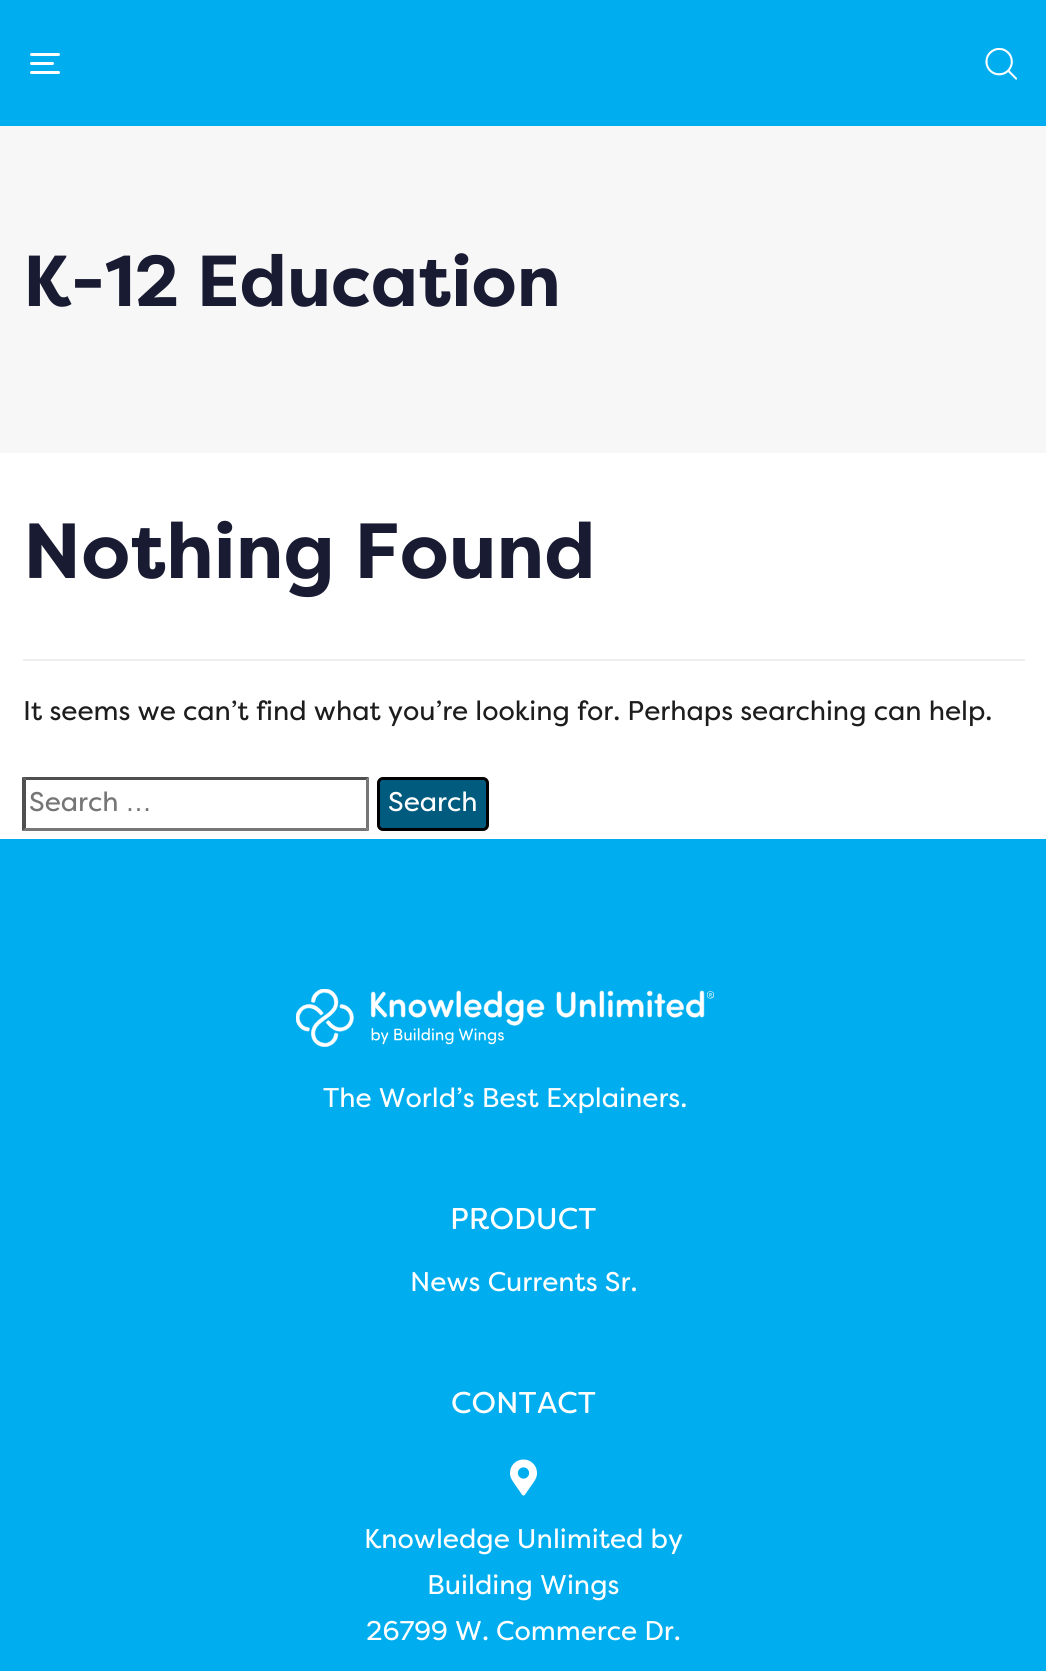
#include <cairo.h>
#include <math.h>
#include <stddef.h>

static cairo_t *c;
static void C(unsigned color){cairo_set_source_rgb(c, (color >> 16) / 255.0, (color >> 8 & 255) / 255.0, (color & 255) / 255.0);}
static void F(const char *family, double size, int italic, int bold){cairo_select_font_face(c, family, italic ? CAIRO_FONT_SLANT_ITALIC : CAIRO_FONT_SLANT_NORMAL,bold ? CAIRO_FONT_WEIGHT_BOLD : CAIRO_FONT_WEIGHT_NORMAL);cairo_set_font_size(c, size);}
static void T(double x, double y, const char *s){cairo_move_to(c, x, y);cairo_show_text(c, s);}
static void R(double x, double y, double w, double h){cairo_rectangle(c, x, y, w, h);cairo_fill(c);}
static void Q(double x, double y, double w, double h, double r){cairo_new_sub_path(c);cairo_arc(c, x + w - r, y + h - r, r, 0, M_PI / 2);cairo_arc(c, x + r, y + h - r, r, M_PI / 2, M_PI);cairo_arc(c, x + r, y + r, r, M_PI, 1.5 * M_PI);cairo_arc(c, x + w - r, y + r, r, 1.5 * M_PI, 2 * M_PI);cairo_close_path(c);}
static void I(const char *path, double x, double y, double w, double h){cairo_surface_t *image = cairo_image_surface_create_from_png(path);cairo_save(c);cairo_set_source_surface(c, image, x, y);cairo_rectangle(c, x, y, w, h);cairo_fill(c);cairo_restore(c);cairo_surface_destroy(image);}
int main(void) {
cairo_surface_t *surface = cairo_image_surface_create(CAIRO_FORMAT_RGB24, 1046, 1671);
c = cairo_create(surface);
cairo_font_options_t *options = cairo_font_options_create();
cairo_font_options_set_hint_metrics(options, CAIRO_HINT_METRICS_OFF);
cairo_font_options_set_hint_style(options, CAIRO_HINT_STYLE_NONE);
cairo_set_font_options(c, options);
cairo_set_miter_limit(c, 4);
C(0xffffff);
cairo_paint(c);
C(0x00aeef);
R(0,0,1046,126);
C(0xffffff);
Q(30,53,30,3,1.5);
cairo_fill(c);
Q(30,62,24,3,1.5);
cairo_fill(c);
Q(30,71,30,3,1.5);
cairo_fill(c);
I("1.png",985,48,32,32);
C(0xf7f7f7);
R(0,126,1046,327);
F("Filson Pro",72,0,1);
C(0x181b31);
T(23,306,"K-12 Education");
C(0xeeeeee);
R(23,659,1002,2);
F("Filson Pro",78,0,1);
C(0x181b31);
T(23,578,"Nothing Found");
F("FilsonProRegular",27,0,0);
C(0x1d1d1d);
T(23,720,"It seems we can’t find what you’re looking for. Perhaps searching can help.");
C(0x4f4f4f);
cairo_new_path(c);
cairo_move_to(c,22,777);
cairo_line_to(c,369,777);
cairo_line_to(c,366,780);
cairo_line_to(c,26,780);
cairo_close_path(c);
cairo_fill(c);
C(0x767676);
cairo_new_path(c);
cairo_move_to(c,369,777);
cairo_line_to(c,369,831);
cairo_line_to(c,366,828);
cairo_line_to(c,366,780);
cairo_close_path(c);
cairo_fill(c);
cairo_new_path(c);
cairo_move_to(c,369,831);
cairo_line_to(c,22,831);
cairo_line_to(c,26,828);
cairo_line_to(c,366,828);
cairo_close_path(c);
cairo_fill(c);
C(0x4f4f4f);
cairo_new_path(c);
cairo_move_to(c,22,831);
cairo_line_to(c,22,777);
cairo_line_to(c,26,780);
cairo_line_to(c,26,828);
cairo_close_path(c);
cairo_fill(c);
C(0x757575);
T(29,811,"Search");
F("Liberation Sans",27,0,0);
T(125,811,"…");
C(0x005b7f);
Q(378.5,778.5,109,51,4.5);
cairo_fill_preserve(c);
C(0x000000);
cairo_set_line_width(c,3);
cairo_stroke(c);
F("FilsonProRegular",27,0,0);
C(0xffffff);
T(388,811,"Search");
C(0x00aeef);
R(0,839,1046,832);
I("2.png",296,989,418,58);
C(0xffffff);
T(323,1107,"The World’s Best Explainers.");
F("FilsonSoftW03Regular",30,0,0);
T(450,1229,"PRODUCT");
F("FilsonProRegular",27,0,0);
T(410,1291,"News Currents Sr.");
F("FilsonSoftW03Regular",30,0,0);
T(451,1413,"CONTACT");
I("3.png",510,1459,27,37);
F("FilsonProRegular",27,0,0);
T(364,1548,"Knowledge Unlimited by");
T(427,1594,"Building Wings");
T(366,1640,"26799 W. Commerce Dr.");
cairo_surface_write_to_png(surface, "o.png");
cairo_font_options_destroy(options);
cairo_destroy(c);
cairo_surface_destroy(surface);
return 0;
}
